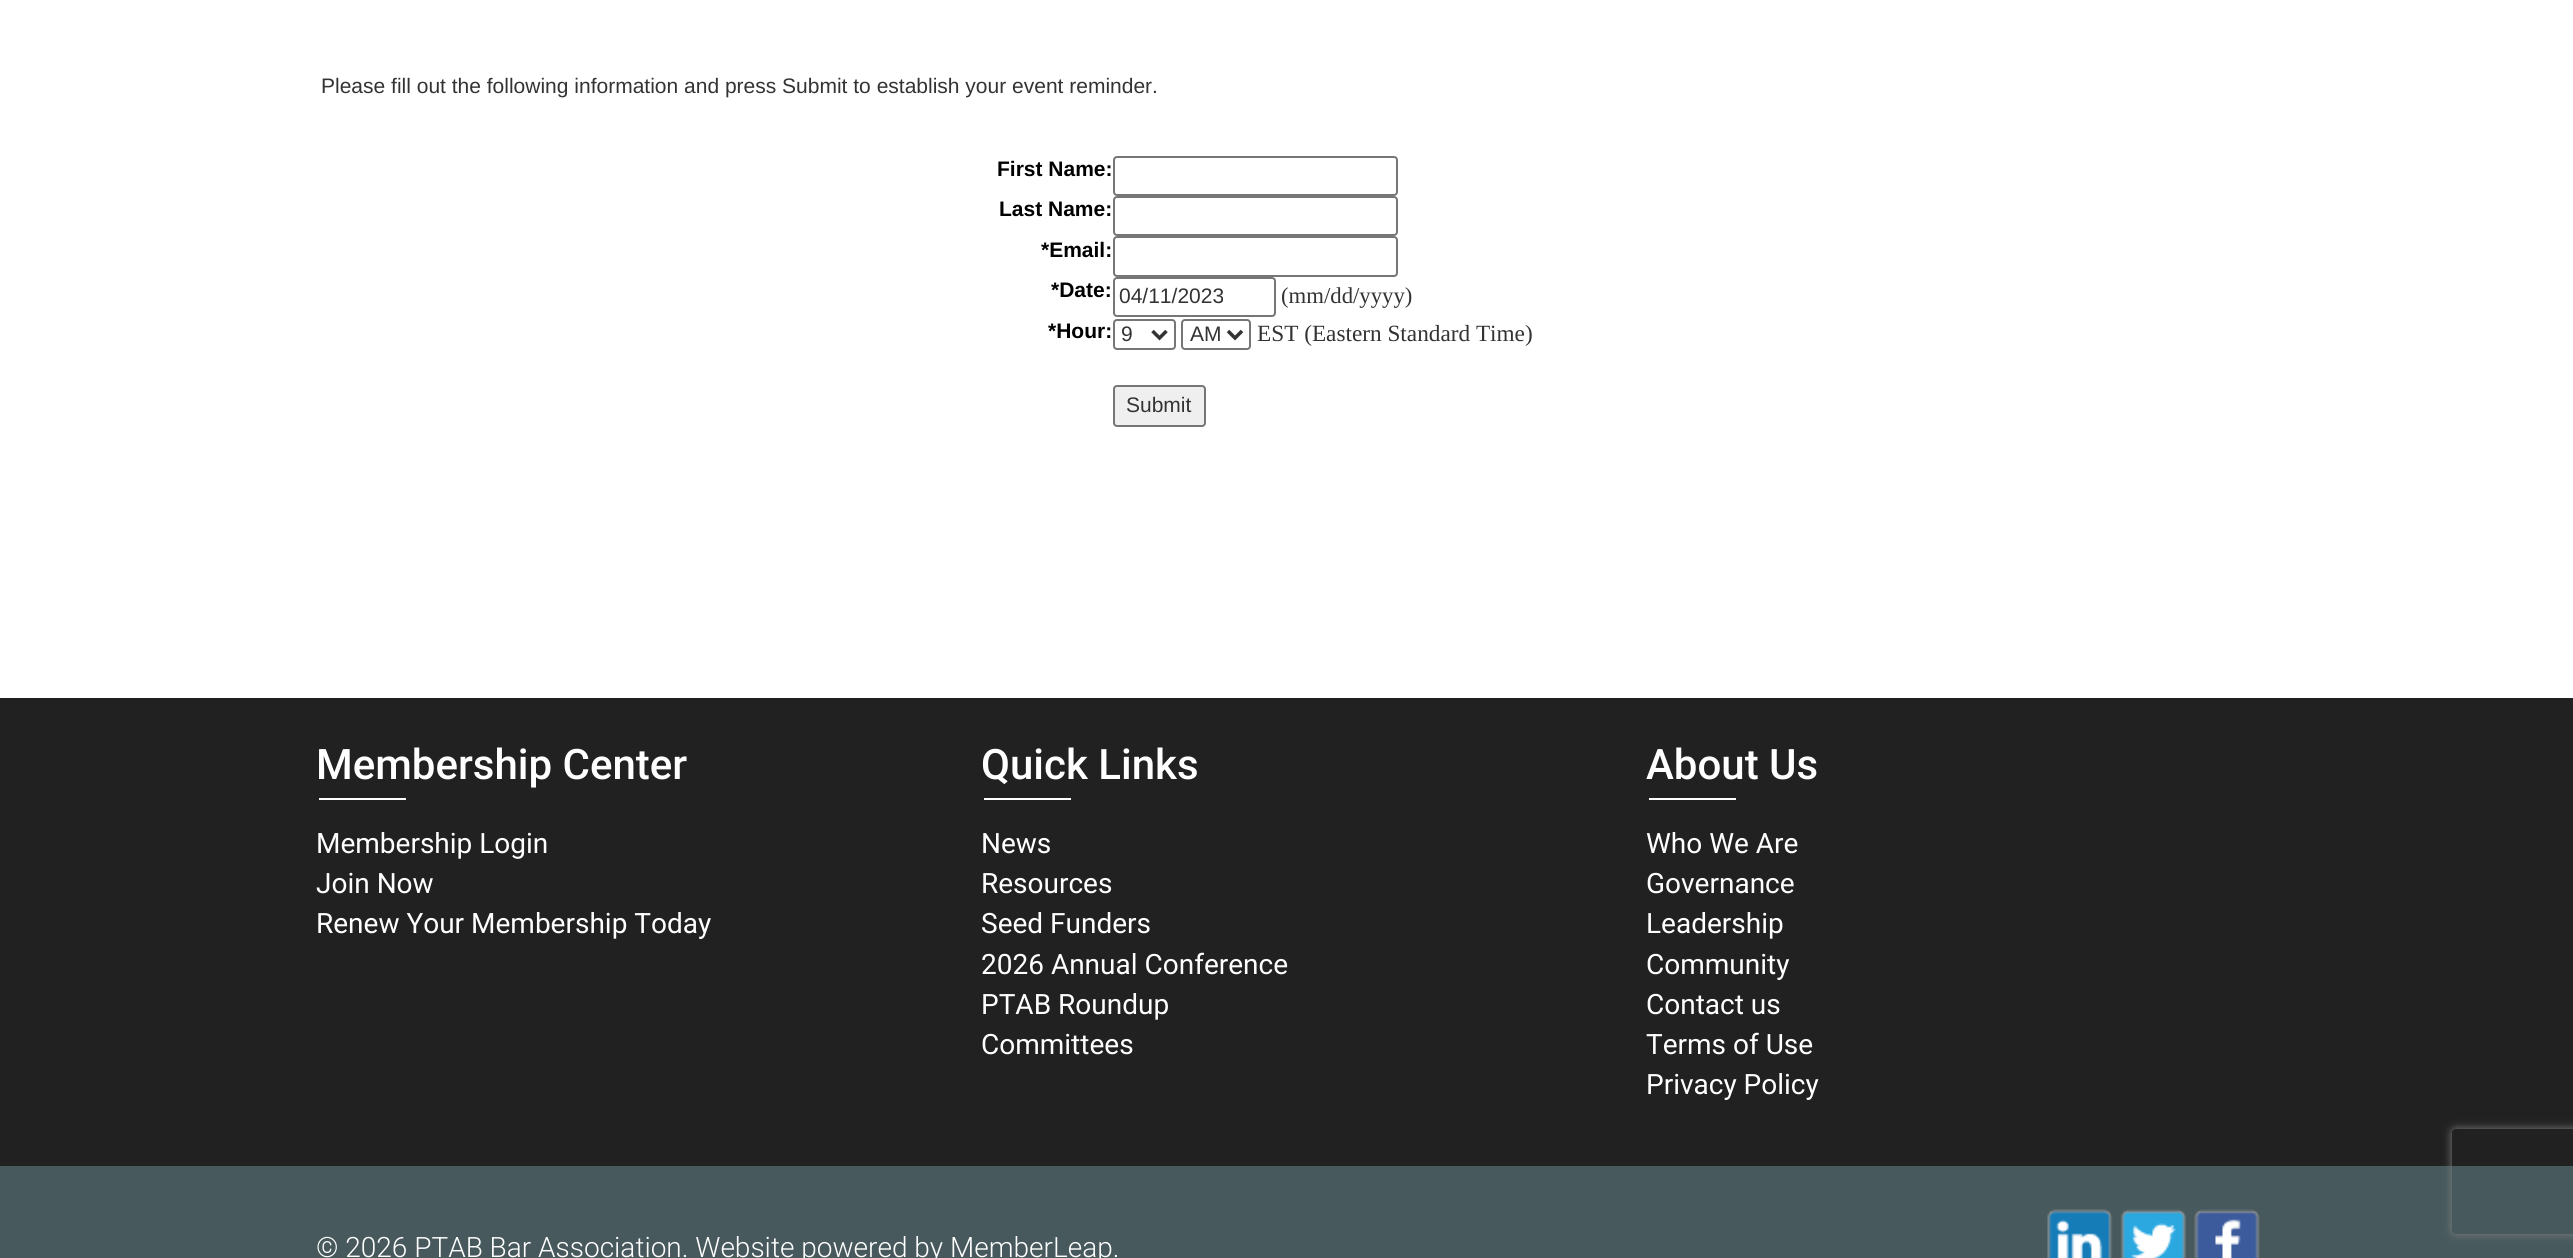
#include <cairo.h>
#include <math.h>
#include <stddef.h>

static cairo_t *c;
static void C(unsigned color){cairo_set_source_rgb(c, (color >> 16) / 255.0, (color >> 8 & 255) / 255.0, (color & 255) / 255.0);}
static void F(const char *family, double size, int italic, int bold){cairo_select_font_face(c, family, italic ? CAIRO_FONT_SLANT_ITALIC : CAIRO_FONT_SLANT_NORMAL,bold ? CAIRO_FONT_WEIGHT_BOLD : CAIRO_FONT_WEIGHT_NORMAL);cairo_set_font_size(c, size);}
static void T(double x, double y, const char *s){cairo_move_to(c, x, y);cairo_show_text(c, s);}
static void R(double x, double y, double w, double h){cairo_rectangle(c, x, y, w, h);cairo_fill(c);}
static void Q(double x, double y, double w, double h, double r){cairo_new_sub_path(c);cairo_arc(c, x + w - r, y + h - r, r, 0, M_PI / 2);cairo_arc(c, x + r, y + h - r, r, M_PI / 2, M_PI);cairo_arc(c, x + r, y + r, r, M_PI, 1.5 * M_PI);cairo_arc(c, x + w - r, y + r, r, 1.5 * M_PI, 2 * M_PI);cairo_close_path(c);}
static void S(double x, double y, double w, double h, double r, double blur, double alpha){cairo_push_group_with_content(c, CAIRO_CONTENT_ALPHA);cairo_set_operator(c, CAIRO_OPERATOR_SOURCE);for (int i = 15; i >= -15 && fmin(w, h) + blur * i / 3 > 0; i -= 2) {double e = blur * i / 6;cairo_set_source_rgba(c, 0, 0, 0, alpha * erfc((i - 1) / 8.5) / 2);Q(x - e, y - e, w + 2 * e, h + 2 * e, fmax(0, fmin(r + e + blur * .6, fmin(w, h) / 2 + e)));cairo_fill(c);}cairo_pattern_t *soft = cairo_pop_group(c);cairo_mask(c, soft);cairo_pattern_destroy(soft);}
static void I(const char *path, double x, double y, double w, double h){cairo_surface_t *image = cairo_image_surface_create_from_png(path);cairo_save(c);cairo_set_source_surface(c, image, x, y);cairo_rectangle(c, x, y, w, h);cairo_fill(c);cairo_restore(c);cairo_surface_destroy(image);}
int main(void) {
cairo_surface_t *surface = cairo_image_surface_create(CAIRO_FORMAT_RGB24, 2573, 1258);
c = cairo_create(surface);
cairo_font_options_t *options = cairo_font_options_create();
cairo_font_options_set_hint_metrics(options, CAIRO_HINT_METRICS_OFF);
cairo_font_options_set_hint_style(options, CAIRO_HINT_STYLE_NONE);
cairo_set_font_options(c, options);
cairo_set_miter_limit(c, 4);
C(0xffffff);
cairo_paint(c);
F("Liberation Sans",21,0,0);
C(0x333333);
T(321,93,"Please fill out the following information and press Submit to establish your event reminder.");
F("Liberation Sans",21,0,1);
C(0x000000);
T(997,176,"First Name:");
Q(1114,157,283,38,3);
C(0x767676);
cairo_stroke(c);
C(0x000000);
T(999,216,"Last Name:");
Q(1114,197,283,38,3);
C(0x767676);
cairo_stroke(c);
C(0x000000);
T(1041,257,"*Email:");
Q(1114,237,283,39,3);
C(0x767676);
cairo_stroke(c);
C(0x000000);
T(1051,297,"*Date:");
Q(1114,278,161,38,3);
C(0x767676);
cairo_stroke(c);
F("Liberation Sans",21,0,0);
C(0x333333);
T(1119,303,"04/11/2023");
F("Liberation Serif",22.75,0,0);
T(1281,303,"(mm/dd/yyyy)");
F("Liberation Sans",21,0,1);
C(0x000000);
T(1048,338,"*Hour:");
Q(1114,320,61,29,3);
C(0x767676);
cairo_stroke(c);
cairo_new_path(c);
cairo_move_to(c,1152.5,331);
cairo_line_to(c,1159.5,338);
cairo_line_to(c,1166.5,331);
C(0x333333);
cairo_set_line_width(c,3.5);
cairo_stroke(c);
F("Liberation Sans",21,0,0);
T(1121,341,"9");
Q(1182,320,68,29,3);
C(0x767676);
cairo_set_line_width(c,2);
cairo_stroke(c);
cairo_new_path(c);
cairo_move_to(c,1228,331);
cairo_line_to(c,1235,338);
cairo_line_to(c,1242,331);
C(0x333333);
cairo_set_line_width(c,3.5);
cairo_stroke(c);
T(1190,341,"AM");
F("Liberation Serif",23.25,0,0);
T(1257,341,"EST (Eastern Standard Time)");
C(0xefefef);
Q(1114,386,91,40,3);
cairo_fill_preserve(c);
C(0x767676);
cairo_set_line_width(c,2);
cairo_stroke(c);
F("Liberation Sans",21,0,0);
C(0x333333);
T(1126,412,"Submit");
C(0x212121);
R(0,698,2573,468);
F("Roboto Medium",42,0,0);
C(0xffffff);
T(316,779,"Membership Center");
R(319,798,87,2);
F("Roboto",28,0,0);
T(316,853,"Membership Login");
T(316,893,"Join Now");
T(316,933,"Renew Your Membership Today");
F("Roboto Medium",42,0,0);
T(981,779,"Quick Links");
R(984,798,87,2);
F("Roboto",28,0,0);
T(981,853,"News");
T(981,893,"Resources");
T(981,933,"Seed Funders");
T(981,974,"2026 Annual Conference");
T(981,1014,"PTAB Roundup");
T(981,1054,"Committees");
F("Roboto Medium",42,0,0);
T(1646,779,"About Us");
R(1649,798,87,2);
F("Roboto",28,0,0);
T(1646,853,"Who We Are");
T(1646,893,"Governance");
T(1646,933,"Leadership");
T(1646,974,"Community");
T(1646,1014,"Contact us");
T(1646,1054,"Terms of Use");
T(1646,1094,"Privacy Policy");
C(0x47595d);
R(0,1166,2573,92);
F("Roboto Light",28,0,0);
C(0xffffff);
T(316,1257,"© 2026 PTAB Bar Association. Website powered by MemberLeap.");
I("1.png",2047,1209,66,49);
I("2.png",2120,1209,66,49);
I("3.png",2194,1209,66,49);
cairo_save(c);
cairo_set_fill_rule(c,CAIRO_FILL_RULE_EVEN_ODD);
cairo_new_path(c);
cairo_move_to(c,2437,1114);
cairo_line_to(c,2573,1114);
cairo_line_to(c,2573,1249);
cairo_line_to(c,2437,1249);
cairo_close_path(c);
cairo_move_to(c,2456,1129);
cairo_line_to(c,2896,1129);
cairo_curve_to(c,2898,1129,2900,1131,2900,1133);
cairo_line_to(c,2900,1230);
cairo_curve_to(c,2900,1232,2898,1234,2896,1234);
cairo_line_to(c,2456,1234);
cairo_curve_to(c,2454,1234,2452,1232,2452,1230);
cairo_line_to(c,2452,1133);
cairo_curve_to(c,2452,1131,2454,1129,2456,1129);
cairo_close_path(c);
cairo_clip(c);
C(0x808080);
S(2452,1129,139,105,4,4.5,1);
cairo_restore(c);
cairo_surface_write_to_png(surface, "o.png");
cairo_font_options_destroy(options);
cairo_destroy(c);
cairo_surface_destroy(surface);
return 0;
}
